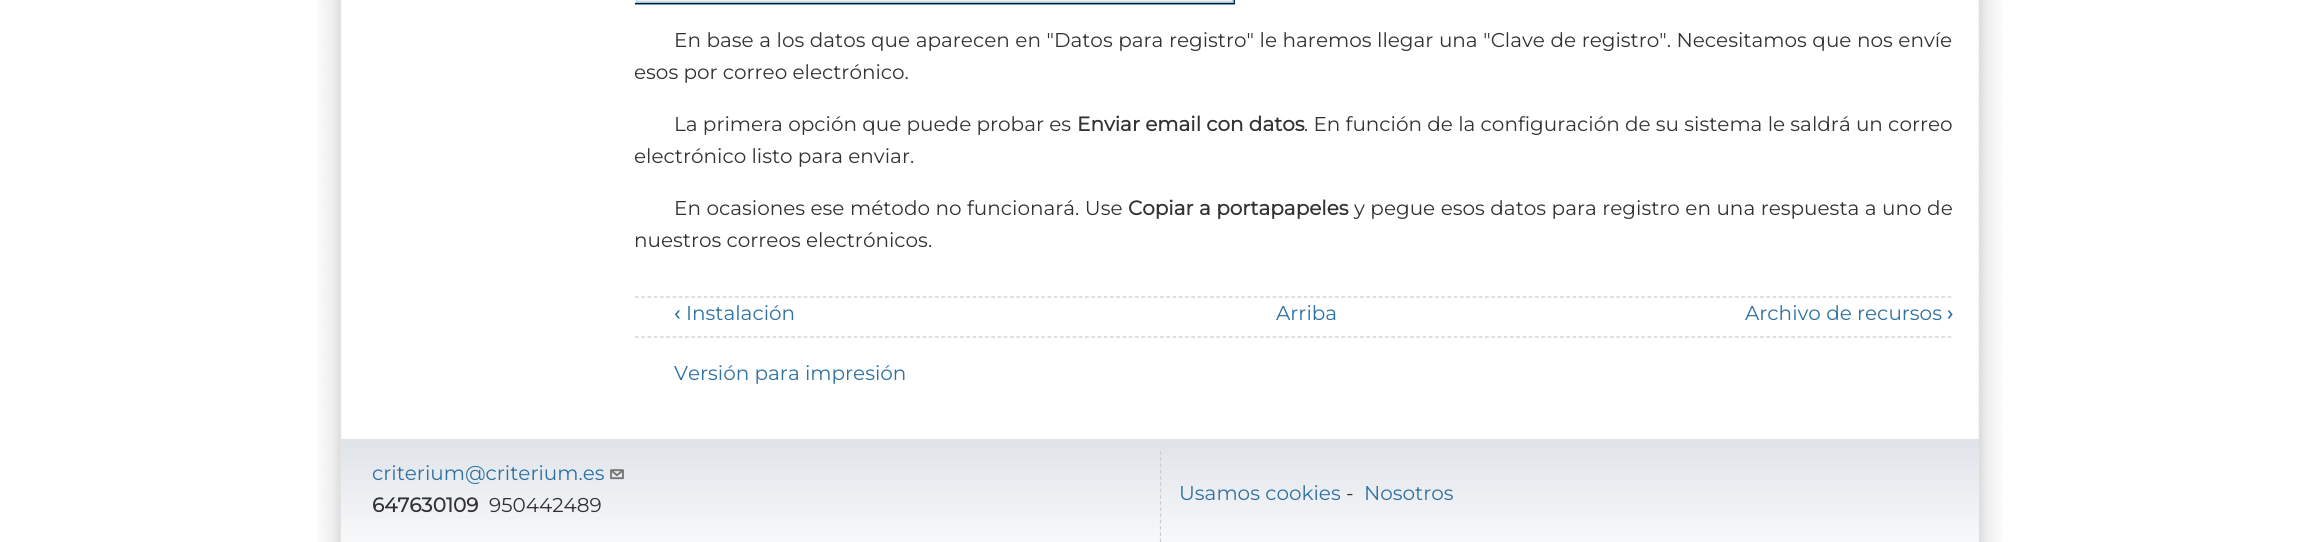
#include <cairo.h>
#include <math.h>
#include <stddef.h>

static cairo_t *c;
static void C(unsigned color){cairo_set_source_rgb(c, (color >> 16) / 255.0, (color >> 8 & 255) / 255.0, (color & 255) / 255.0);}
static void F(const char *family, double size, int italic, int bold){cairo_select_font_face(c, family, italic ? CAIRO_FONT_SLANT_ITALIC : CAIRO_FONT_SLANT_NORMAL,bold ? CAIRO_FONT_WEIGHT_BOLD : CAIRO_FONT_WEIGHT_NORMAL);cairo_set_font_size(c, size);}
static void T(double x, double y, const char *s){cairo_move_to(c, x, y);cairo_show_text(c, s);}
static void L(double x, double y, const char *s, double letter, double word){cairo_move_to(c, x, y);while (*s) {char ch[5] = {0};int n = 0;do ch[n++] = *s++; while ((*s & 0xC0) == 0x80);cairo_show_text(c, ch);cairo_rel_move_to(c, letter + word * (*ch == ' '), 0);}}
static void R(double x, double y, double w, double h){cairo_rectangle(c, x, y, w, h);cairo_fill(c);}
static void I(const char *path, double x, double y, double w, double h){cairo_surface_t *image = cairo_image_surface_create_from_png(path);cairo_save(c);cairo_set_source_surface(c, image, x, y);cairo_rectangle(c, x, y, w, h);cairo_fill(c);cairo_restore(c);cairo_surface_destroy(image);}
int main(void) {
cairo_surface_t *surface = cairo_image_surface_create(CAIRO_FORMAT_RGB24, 2318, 542);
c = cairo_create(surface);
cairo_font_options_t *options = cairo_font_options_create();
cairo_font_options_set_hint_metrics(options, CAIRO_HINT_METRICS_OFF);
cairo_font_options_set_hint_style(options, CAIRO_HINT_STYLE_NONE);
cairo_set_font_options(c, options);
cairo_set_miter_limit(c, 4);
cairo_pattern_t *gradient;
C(0xffffff);
cairo_paint(c);
I("1.png",317,0,25,542);
I("2.png",1978,0,24,542);
I("3.png",635,0,600,5);
F("Montserrat",20,0,0);
C(0x333333);
L(674,47,"En base a los datos que aparecen en \"Datos para registro\" le haremos llegar una \"Clave de registro\". Necesitamos que nos envíe",0,.3);
T(634,79,"esos por correo electrónico.");
T(674,131,"La primera opción que puede probar es");
F("Montserrat",20,0,1);
T(1077,131,"Enviar email con datos");
F("Montserrat",20,0,0);
T(1304,131,". En función de la configuración de su sistema le saldrá un correo");
T(634,163,"electrónico listo para enviar.");
L(674,215,"En ocasiones ese método no funcionará. Use",0,.25);
F("Montserrat",20,0,1);
L(1128,215,"Copiar a portapapeles",0,.25);
F("Montserrat",20,0,0);
L(1354,215,"y pegue esos datos para registro en una respuesta a uno de",0,.25);
T(634,247,"nuestros correos electrónicos.");
cairo_new_path(c);
cairo_move_to(c,635,297);
cairo_line_to(c,1952.5,297);
C(0xcccccc);
cairo_set_line_width(c,1.2);
cairo_set_dash(c,(double[]){3.75,2.5},2,0);
cairo_stroke(c);
cairo_new_path(c);
cairo_move_to(c,635,337);
cairo_line_to(c,1952.5,337);
cairo_stroke(c);
F("Montserrat",20,0,1);
C(0x2f71a2);
T(674,320,"‹");
F("Montserrat",20,0,0);
T(686,320,"Instalación");
T(1276,320,"Arriba");
T(1745,320,"Archivo de recursos");
F("Montserrat",20,0,1);
T(1947,320,"›");
F("Montserrat",20,0,0);
T(674,380,"Versión para impresión");
gradient = cairo_pattern_create_linear(1160,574,1160,386);
cairo_pattern_add_color_stop_rgba(gradient,0,1,1,1,1);
cairo_pattern_add_color_stop_rgba(gradient,1,0.827,0.847,0.878,1);
cairo_set_source(c,gradient);
cairo_pattern_destroy(gradient);
R(341,439,1638,103);
C(0x2f71a2);
T(372,480,"criterium@criterium.es");
I("4.png",610,469,14,11);
F("Montserrat",20,0,1);
C(0x333333);
T(372,512,"647630109");
F("Montserrat",20,0,0);
T(489,512,"950442489");
cairo_new_path(c);
cairo_move_to(c,1160.5,451);
cairo_line_to(c,1160.5,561);
C(0xcccccc);
cairo_stroke(c);
C(0x2f71a2);
T(1179,500,"Usamos cookies");
C(0x333333);
T(1346,500,"-");
C(0x2f71a2);
T(1364,500,"Nosotros");
cairo_surface_write_to_png(surface, "o.png");
cairo_font_options_destroy(options);
cairo_destroy(c);
cairo_surface_destroy(surface);
return 0;
}
